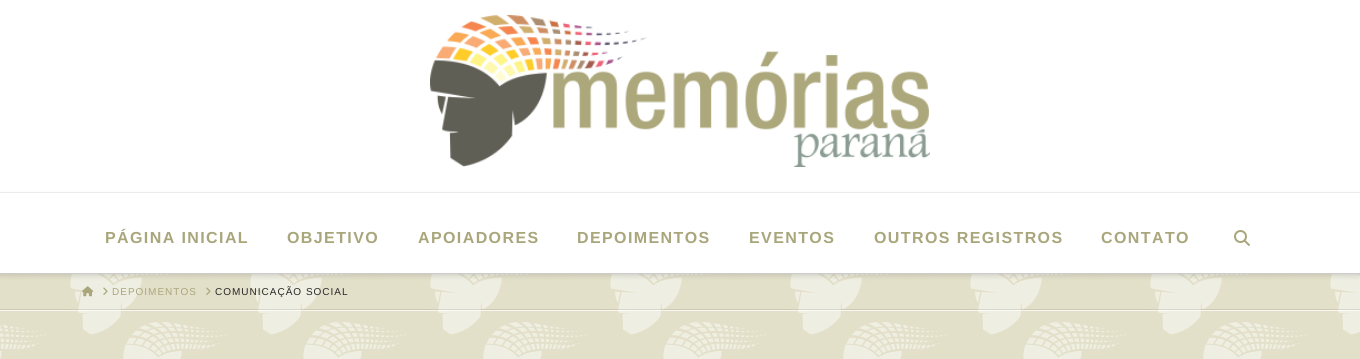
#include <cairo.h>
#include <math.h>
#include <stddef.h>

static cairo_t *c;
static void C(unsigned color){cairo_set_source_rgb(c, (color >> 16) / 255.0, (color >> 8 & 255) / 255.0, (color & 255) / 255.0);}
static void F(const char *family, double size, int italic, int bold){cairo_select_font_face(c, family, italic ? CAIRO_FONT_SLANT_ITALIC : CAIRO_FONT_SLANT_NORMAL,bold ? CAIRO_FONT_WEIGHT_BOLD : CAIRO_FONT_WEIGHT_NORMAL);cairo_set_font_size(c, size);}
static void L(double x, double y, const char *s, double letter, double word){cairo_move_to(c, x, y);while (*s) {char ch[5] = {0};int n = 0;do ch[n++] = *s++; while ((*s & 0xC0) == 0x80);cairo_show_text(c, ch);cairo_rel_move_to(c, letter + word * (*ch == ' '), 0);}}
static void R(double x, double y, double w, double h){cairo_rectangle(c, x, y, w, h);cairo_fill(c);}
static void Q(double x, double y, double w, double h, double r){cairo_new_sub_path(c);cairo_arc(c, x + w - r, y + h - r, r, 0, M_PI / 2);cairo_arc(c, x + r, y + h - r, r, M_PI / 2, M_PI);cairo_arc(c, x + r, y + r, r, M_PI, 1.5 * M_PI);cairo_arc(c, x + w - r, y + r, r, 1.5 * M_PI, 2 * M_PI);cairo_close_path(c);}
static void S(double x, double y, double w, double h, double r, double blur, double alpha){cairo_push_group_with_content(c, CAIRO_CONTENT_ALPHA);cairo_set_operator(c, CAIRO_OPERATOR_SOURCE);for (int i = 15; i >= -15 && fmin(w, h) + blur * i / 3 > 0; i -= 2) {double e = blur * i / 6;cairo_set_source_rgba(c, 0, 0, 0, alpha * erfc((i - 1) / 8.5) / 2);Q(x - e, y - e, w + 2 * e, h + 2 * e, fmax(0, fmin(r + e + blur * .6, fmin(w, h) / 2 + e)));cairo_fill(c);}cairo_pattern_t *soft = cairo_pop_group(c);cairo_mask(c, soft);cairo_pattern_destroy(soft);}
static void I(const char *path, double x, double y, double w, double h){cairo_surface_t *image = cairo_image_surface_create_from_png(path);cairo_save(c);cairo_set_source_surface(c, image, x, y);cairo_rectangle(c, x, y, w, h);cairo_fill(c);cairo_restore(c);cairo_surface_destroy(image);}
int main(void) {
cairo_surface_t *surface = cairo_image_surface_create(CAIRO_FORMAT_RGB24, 1360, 359);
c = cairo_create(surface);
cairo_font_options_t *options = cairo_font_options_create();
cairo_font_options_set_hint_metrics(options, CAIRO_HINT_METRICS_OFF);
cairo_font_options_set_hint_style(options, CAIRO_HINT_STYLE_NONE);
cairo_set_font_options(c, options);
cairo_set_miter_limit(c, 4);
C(0xffffff);
cairo_paint(c);
I("1.png",0,274,1360,85);
C(0xf2f2f2);
R(0,192,1360,1);
I("2.png",430,15,500,152);
C(0x000000);
S(0,195,1360,81,0,2.5,.13);
C(0xffffff);
R(0,193,1360,80);
C(0xcccccc);
R(0,273,1360,1);
F("Liberation Sans",16,0,1);
C(0xa9a67c);
L(105,243,"PÁGINA INICIAL",1.4,0);
L(287,243,"OBJETIVO",1.4,0);
L(418,243,"APOIADORES",1.4,0);
L(577,243,"DEPOIMENTOS",1.4,0);
L(749,243,"EVENTOS",1.4,0);
L(874,243,"OUTROS REGISTROS",1.4,0);
L(1101,243,"CONTATO",1.4,0);
I("3.png",1234,230,16,16);
cairo_set_source_rgba(c,1,1,1,0.71);
R(0,310,1360,1);
cairo_set_source_rgba(c,0,0,0,0.1);
R(0,309,1360,1);
I("4.png",82,286,12,11);
I("5.png",103,287,5,8);
F("Liberation Sans",10,0,0);
C(0xa9a67c);
L(112,295,"DEPOIMENTOS",1,0);
I("6.png",206,287,5,8);
C(0x272727);
L(215,295,"COMUNICAÇÃO SOCIAL",1,0);
cairo_surface_write_to_png(surface, "o.png");
cairo_font_options_destroy(options);
cairo_destroy(c);
cairo_surface_destroy(surface);
return 0;
}
